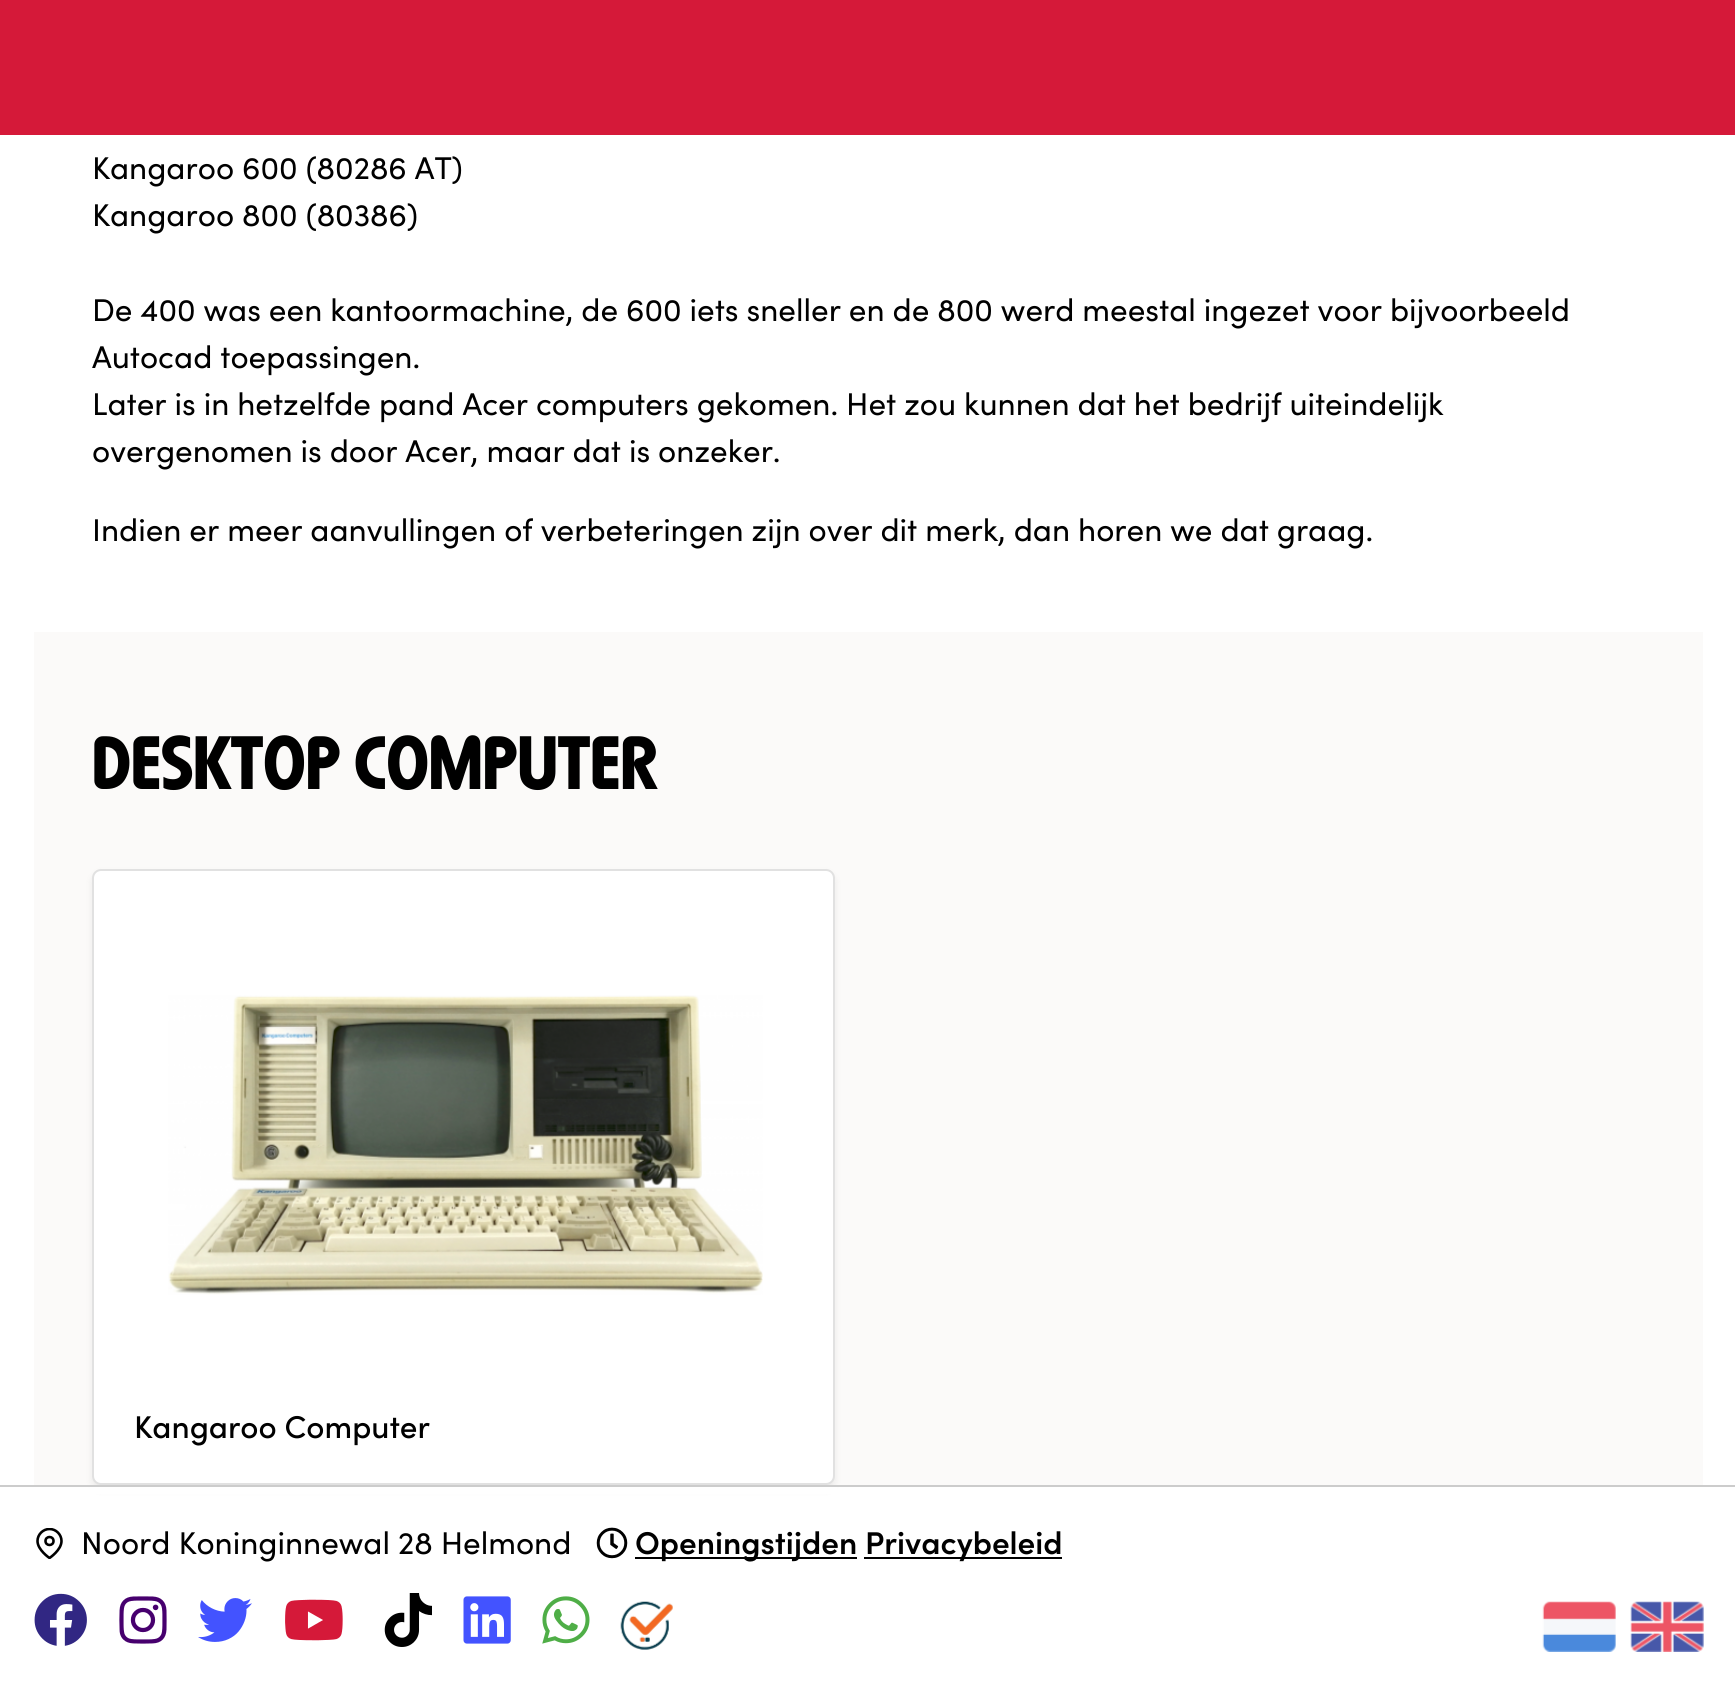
#include <cairo.h>
#include <math.h>
#include <stddef.h>

static cairo_t *c;
static void C(unsigned color){cairo_set_source_rgb(c, (color >> 16) / 255.0, (color >> 8 & 255) / 255.0, (color & 255) / 255.0);}
static void F(const char *family, double size, int italic, int bold){cairo_select_font_face(c, family, italic ? CAIRO_FONT_SLANT_ITALIC : CAIRO_FONT_SLANT_NORMAL,bold ? CAIRO_FONT_WEIGHT_BOLD : CAIRO_FONT_WEIGHT_NORMAL);cairo_set_font_size(c, size);}
static void T(double x, double y, const char *s){cairo_move_to(c, x, y);cairo_show_text(c, s);}
static void R(double x, double y, double w, double h){cairo_rectangle(c, x, y, w, h);cairo_fill(c);}
static void Q(double x, double y, double w, double h, double r){cairo_new_sub_path(c);cairo_arc(c, x + w - r, y + h - r, r, 0, M_PI / 2);cairo_arc(c, x + r, y + h - r, r, M_PI / 2, M_PI);cairo_arc(c, x + r, y + r, r, M_PI, 1.5 * M_PI);cairo_arc(c, x + w - r, y + r, r, 1.5 * M_PI, 2 * M_PI);cairo_close_path(c);}
static void S(double x, double y, double w, double h, double r, double blur, double alpha){cairo_push_group_with_content(c, CAIRO_CONTENT_ALPHA);cairo_set_operator(c, CAIRO_OPERATOR_SOURCE);for (int i = 15; i >= -15 && fmin(w, h) + blur * i / 3 > 0; i -= 2) {double e = blur * i / 6;cairo_set_source_rgba(c, 0, 0, 0, alpha * erfc((i - 1) / 8.5) / 2);Q(x - e, y - e, w + 2 * e, h + 2 * e, fmax(0, fmin(r + e + blur * .6, fmin(w, h) / 2 + e)));cairo_fill(c);}cairo_pattern_t *soft = cairo_pop_group(c);cairo_mask(c, soft);cairo_pattern_destroy(soft);}
static void I(const char *path, double x, double y, double w, double h){cairo_surface_t *image = cairo_image_surface_create_from_png(path);cairo_save(c);cairo_set_source_surface(c, image, x, y);cairo_rectangle(c, x, y, w, h);cairo_fill(c);cairo_restore(c);cairo_surface_destroy(image);}
int main(void) {
cairo_surface_t *surface = cairo_image_surface_create(CAIRO_FORMAT_RGB24, 1735, 1681);
c = cairo_create(surface);
cairo_font_options_t *options = cairo_font_options_create();
cairo_font_options_set_hint_metrics(options, CAIRO_HINT_METRICS_OFF);
cairo_font_options_set_hint_style(options, CAIRO_HINT_STYLE_NONE);
cairo_set_font_options(c, options);
cairo_set_miter_limit(c, 4);
C(0xffffff);
cairo_paint(c);
C(0xd51939);
R(0,0,1735,135);
F("Sofia",31.5,0,0);
C(0x000000);
T(92,179,"Kangaroo 600 (80286 AT)");
T(92,226,"Kangaroo 800 (80386)");
T(92,321,"De 400 was een kantoormachine, de 600 iets sneller en de 800 werd meestal ingezet voor bijvoorbeeld");
T(92,368,"Autocad toepassingen.");
T(92,415,"Later is in hetzelfde pand Acer computers gekomen. Het zou kunnen dat het bedrijf uiteindelijk");
T(92,462,"overgenomen is door Acer, maar dat is onzeker.");
T(92,541,"Indien er meer aanvullingen of verbeteringen zijn over dit merk, dan horen we dat graag.");
C(0xfbfaf9);
R(34,632,1669,853);
F("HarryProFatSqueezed",78.75,0,0);
C(0x000000);
T(92,789,"DESKTOP COMPUTER");
C(0x000000);
S(92,873,743,617,9,4,.07);
C(0xffffff);
Q(92,869,743,616,9);
cairo_fill(c);
Q(93,870,741,614,8);
cairo_set_source_rgba(c,0,0,0,0.12);
cairo_stroke(c);
I("1.png",168,995,595,300);
F("Sofia Medium",31.5,0,0);
C(0x000000);
T(134,1438,"Kangaroo Computer");
C(0xffffff);
R(90,1487,747,7);
C(0xcccccc);
R(0,1485,1735,2);
F("Sofia",31.5,0,0);
C(0x000000);
T(81,1554,"Noord Koninginnewal 28 Helmond");
cairo_save(c);
cairo_rectangle(c,34,1528,31,31);
cairo_clip(c);
cairo_new_path(c);
cairo_move_to(c,61.5,1541);
cairo_curve_to(c,61.5,1550,49.5,1558,49.5,1558);
cairo_curve_to(c,49.5,1558,37.5,1550,37.5,1541);
cairo_curve_to(c,37.5,1534.5,43,1529,49.5,1529);
cairo_curve_to(c,56,1529,61.5,1534.5,61.5,1541);
cairo_close_path(c);
cairo_set_line_width(c,2.6);
cairo_set_line_cap(c,CAIRO_LINE_CAP_ROUND);
cairo_set_line_join(c,CAIRO_LINE_JOIN_ROUND);
cairo_stroke(c);
cairo_restore(c);
cairo_arc(c,49.5,1541,4,0,2 * M_PI);
cairo_set_line_width(c,2.6);
cairo_stroke(c);
I("2.png",596,1527,32,32);
R(635,1557,222,2);
F("Sofia SemiBold",31.5,0,0);
T(635,1554,"Openingstijden");
R(864,1557,198,2);
T(865,1554,"Privacybeleid");
I("3.png",34,1593,53,53);
I("4.png",119,1596,48,48);
I("5.png",198,1598,54,44);
I("6.png",285,1599,58,42);
I("7.png",384,1593,48,54);
I("8.png",463,1596,48,48);
I("9.png",542,1596,48,48);
I("10.png",620,1601,53,49);
I("11.png",1542,1601,74,51);
I("12.png",1630,1601,74,51);
cairo_surface_write_to_png(surface, "o.png");
cairo_font_options_destroy(options);
cairo_destroy(c);
cairo_surface_destroy(surface);
return 0;
}
